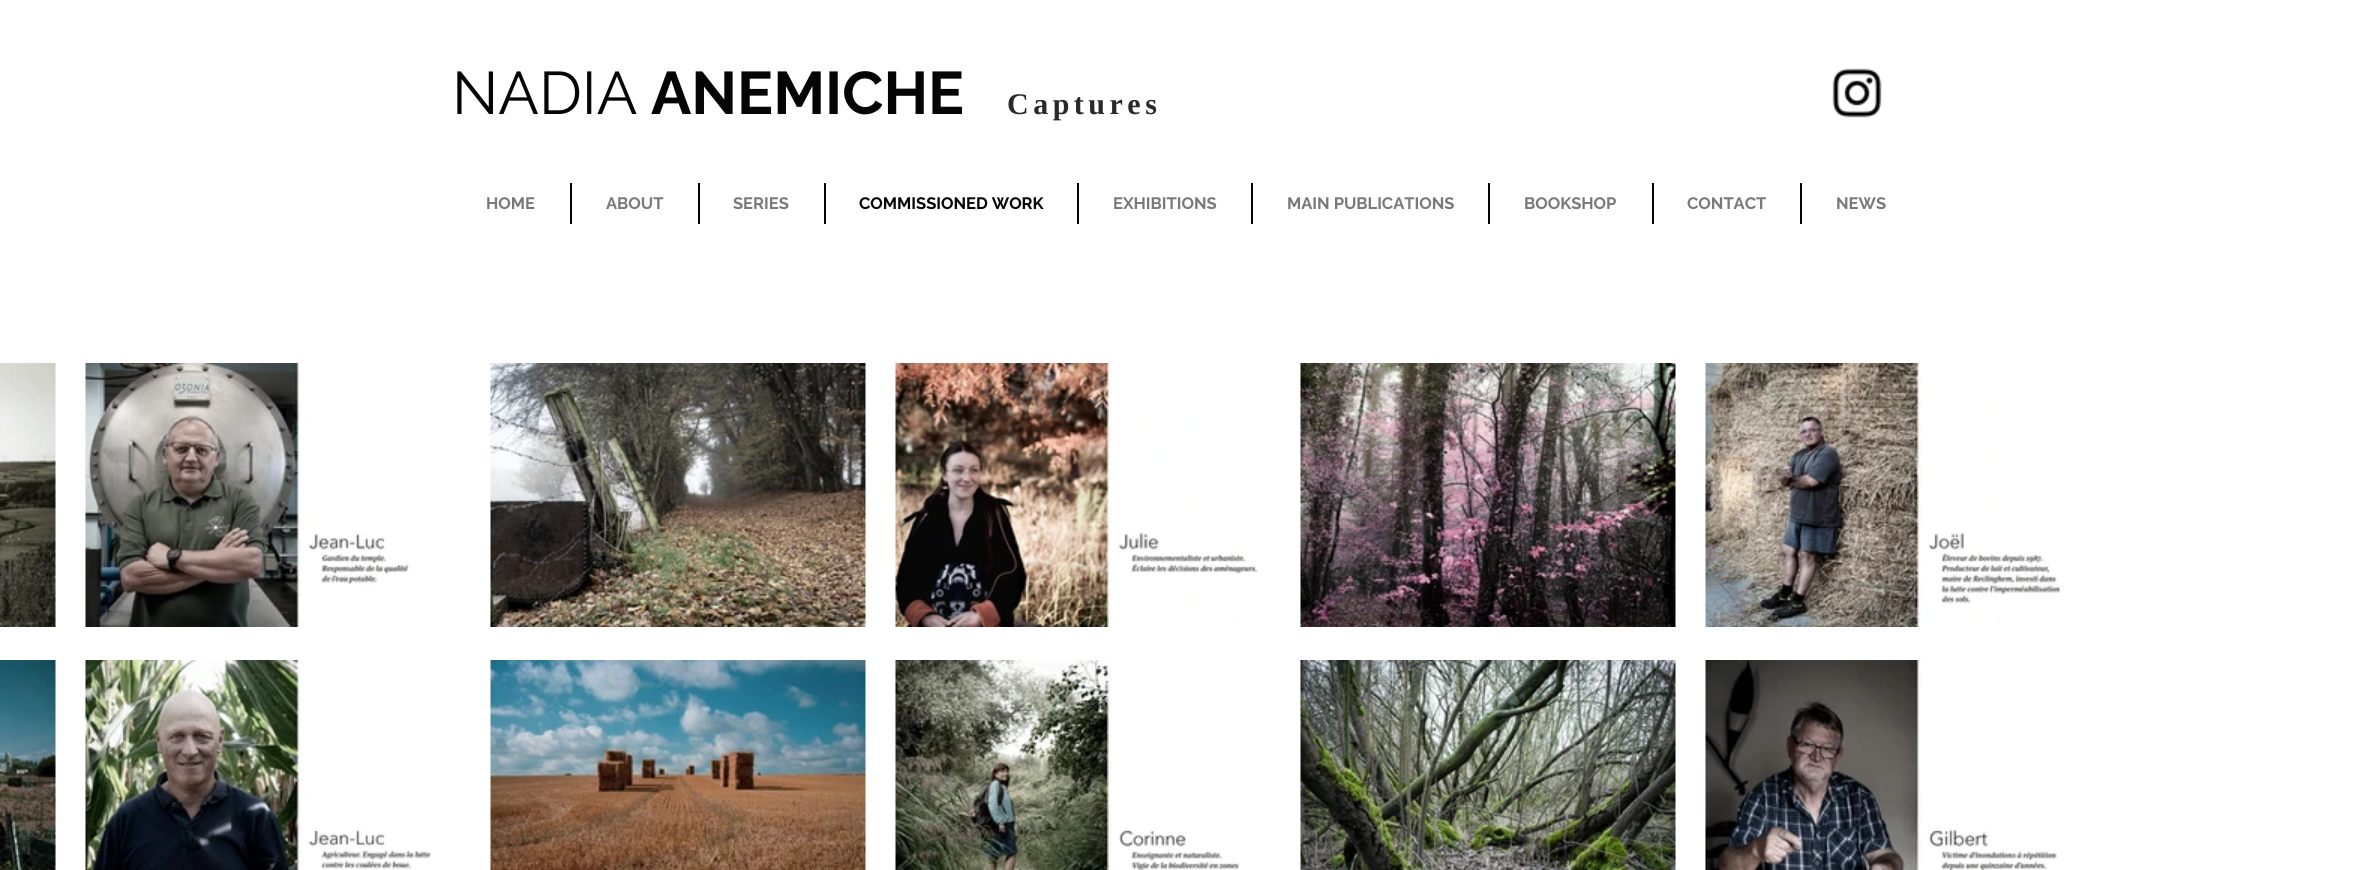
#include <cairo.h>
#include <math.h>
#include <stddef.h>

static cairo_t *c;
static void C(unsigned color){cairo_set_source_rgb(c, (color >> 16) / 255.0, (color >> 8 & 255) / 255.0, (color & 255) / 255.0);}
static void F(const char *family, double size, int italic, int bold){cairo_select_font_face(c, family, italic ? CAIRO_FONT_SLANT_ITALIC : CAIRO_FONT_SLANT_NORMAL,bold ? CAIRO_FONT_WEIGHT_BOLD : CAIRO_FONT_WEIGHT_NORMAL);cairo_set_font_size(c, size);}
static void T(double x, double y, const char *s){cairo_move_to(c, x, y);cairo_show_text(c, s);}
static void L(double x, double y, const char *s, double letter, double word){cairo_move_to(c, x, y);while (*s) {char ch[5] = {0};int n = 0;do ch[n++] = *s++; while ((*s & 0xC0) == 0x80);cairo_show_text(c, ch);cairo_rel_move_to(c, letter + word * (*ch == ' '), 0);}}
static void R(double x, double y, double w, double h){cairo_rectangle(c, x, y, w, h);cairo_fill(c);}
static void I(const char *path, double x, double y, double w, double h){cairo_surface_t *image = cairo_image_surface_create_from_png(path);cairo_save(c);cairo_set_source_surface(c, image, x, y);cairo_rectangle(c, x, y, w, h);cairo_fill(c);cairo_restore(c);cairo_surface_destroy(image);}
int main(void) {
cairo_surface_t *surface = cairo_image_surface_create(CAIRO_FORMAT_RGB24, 2373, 870);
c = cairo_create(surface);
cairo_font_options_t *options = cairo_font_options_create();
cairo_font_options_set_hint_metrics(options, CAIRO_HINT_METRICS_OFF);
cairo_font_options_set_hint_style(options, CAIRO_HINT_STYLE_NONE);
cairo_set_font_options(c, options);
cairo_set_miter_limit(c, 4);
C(0xffffff);
cairo_paint(c);
F("Raleway",60,0,0);
C(0x050505);
T(452,114,"NADIA");
F("Raleway",60,0,1);
T(651,114,"ANEMICHE");
F("Liberation Serif",30,0,1);
C(0x292929);
L(1007,114,"Captures",4.5,0);
I("1.png",1832,68,50,50);
F("Raleway",16.5,0,1);
C(0x797979);
T(486,209,"HOME");
C(0x050505);
R(570,183,2,41);
C(0x797979);
T(606,209,"ABOUT");
C(0x050505);
R(698,183,2,41);
C(0x797979);
T(733,209,"SERIES");
C(0x050505);
R(824,183,2,41);
T(859,209,"COMMISSIONED WORK");
R(1077,183,2,41);
C(0x797979);
T(1113,209,"EXHIBITIONS");
C(0x050505);
R(1251,183,2,41);
C(0x797979);
T(1287,209,"MAIN PUBLICATIONS");
C(0x050505);
R(1488,183,2,41);
C(0x797979);
T(1524,209,"BOOKSHOP");
C(0x050505);
R(1652,183,2,41);
C(0x797979);
T(1687,209,"CONTACT");
C(0x050505);
R(1800,183,2,41);
C(0x797979);
T(1836,209,"NEWS");
I("2.png",0,363,56,264);
I("3.png",85,363,324,264);
I("4.png",490,363,376,264);
I("5.png",895,363,363,264);
I("6.png",1300,363,376,264);
I("7.png",1705,363,355,264);
I("8.png",0,660,56,210);
I("9.png",85,660,346,210);
I("10.png",490,660,376,210);
I("11.png",895,660,345,210);
I("12.png",1300,660,376,210);
I("13.png",1705,660,352,210);
cairo_surface_write_to_png(surface, "o.png");
cairo_font_options_destroy(options);
cairo_destroy(c);
cairo_surface_destroy(surface);
return 0;
}
